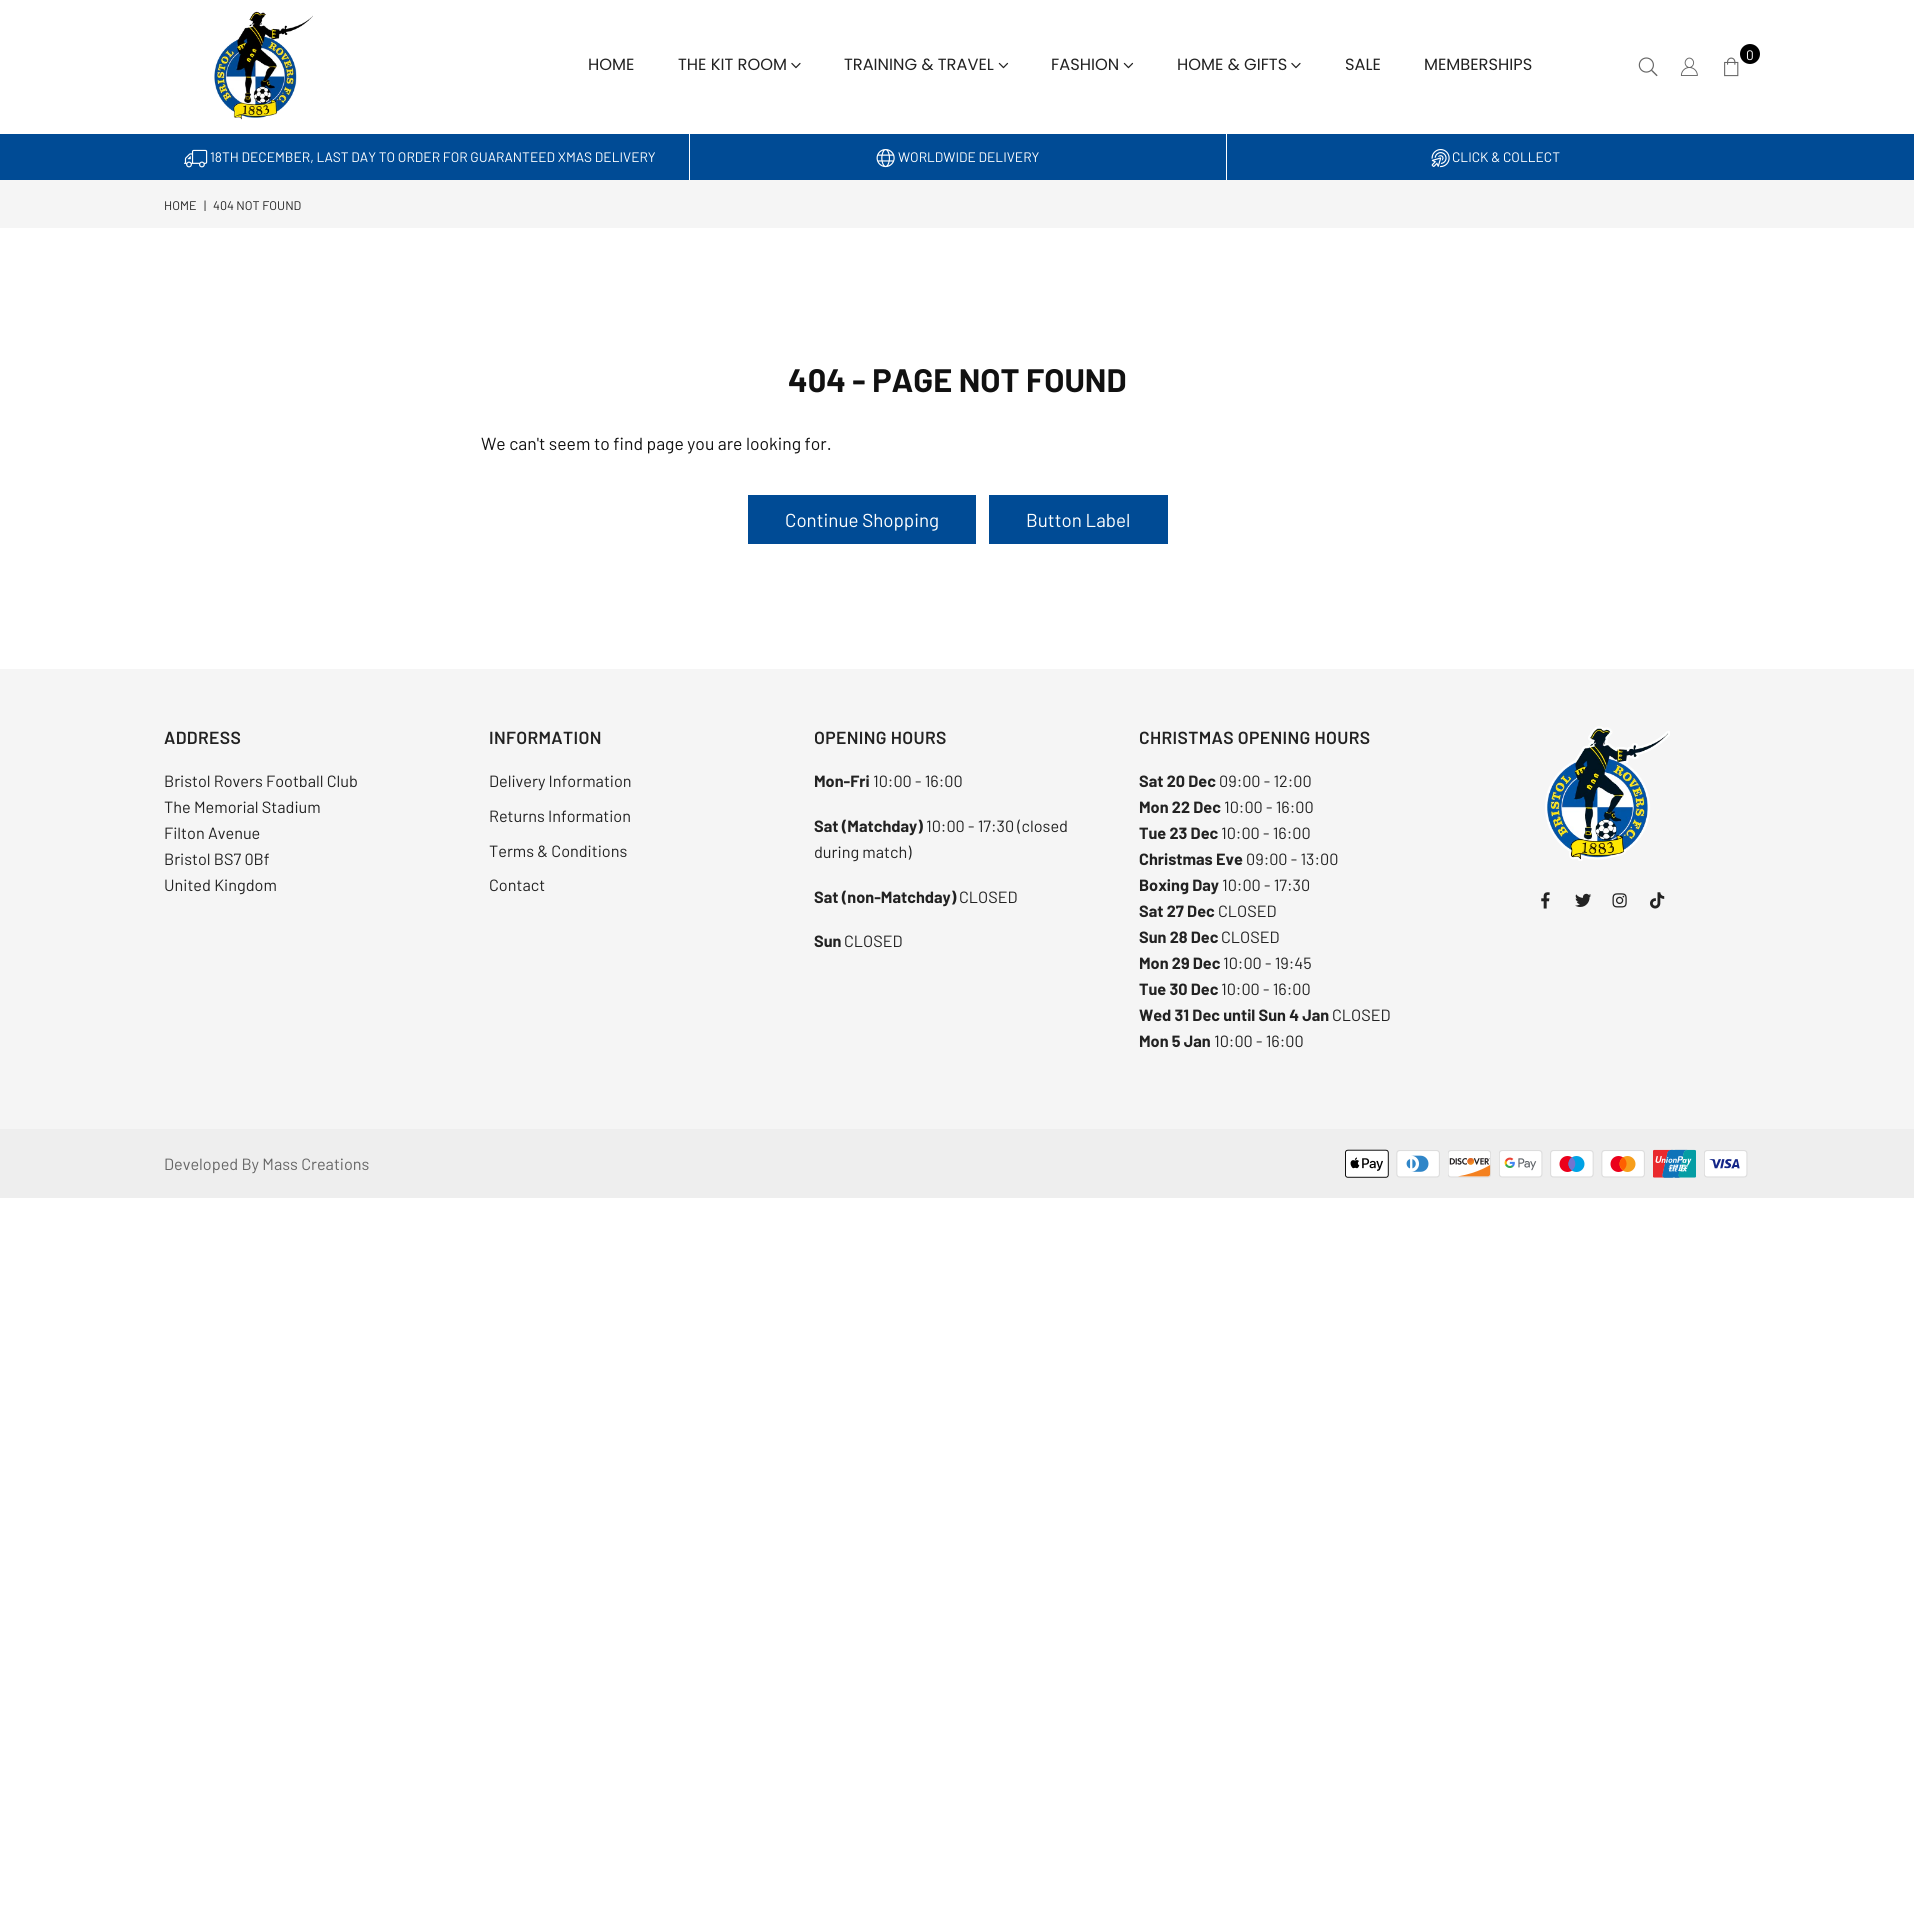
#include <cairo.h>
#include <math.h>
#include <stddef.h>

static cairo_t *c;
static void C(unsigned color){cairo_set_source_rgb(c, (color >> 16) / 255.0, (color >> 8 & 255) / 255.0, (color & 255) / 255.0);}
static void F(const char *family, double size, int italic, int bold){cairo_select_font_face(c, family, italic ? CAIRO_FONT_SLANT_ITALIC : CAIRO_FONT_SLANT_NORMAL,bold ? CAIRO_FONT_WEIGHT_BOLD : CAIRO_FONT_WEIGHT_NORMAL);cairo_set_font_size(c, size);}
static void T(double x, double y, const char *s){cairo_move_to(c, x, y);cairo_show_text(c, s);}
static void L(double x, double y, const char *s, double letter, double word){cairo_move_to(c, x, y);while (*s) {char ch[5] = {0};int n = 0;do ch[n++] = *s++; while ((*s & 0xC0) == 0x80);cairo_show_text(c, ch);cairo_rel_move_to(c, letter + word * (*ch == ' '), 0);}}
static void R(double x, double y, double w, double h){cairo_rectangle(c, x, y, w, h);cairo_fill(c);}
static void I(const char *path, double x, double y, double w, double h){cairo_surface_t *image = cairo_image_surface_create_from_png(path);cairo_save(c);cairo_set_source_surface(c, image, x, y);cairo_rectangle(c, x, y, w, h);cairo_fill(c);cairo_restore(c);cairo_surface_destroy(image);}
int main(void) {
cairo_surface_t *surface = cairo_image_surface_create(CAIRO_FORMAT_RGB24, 1914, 1914);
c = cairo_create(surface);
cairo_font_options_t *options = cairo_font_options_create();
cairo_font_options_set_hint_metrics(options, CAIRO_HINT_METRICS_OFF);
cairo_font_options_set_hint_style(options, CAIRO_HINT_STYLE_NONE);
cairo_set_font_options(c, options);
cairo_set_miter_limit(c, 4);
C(0xffffff);
cairo_paint(c);
I("1.png",214,11,99,109);
C(0x000000);
cairo_arc(c,1750,54,10,0,2 * M_PI);
cairo_fill(c);
F("Barlow",13.75,0,0);
C(0xffffff);
T(1746,60,"0");
I("2.png",1724,57,15,20);
I("3.png",1638,57,20,20);
I("4.png",1680,57,18,19);
F("Poppins",16.25,0,0);
C(0x222222);
T(588,70,"HOME");
T(678,70,"THE KIT ROOM");
I("5.png",791,62,10,7);
T(844,70,"TRAINING & TRAVEL");
I("6.png",998,62,11,7);
T(1051,70,"FASHION");
I("6.png",1123,62,11,7);
T(1177,70,"HOME & GIFTS");
I("5.png",1291,62,10,7);
T(1345,70,"SALE");
T(1424,70,"MEMBERSHIPS");
C(0x004b95);
R(0,134,1914,46);
I("7.png",184,149,24,19);
F("Barlow",13.75,0,0);
C(0xffffff);
T(210,162,"18TH DECEMBER, LAST DAY TO ORDER FOR GUARANTEED XMAS DELIVERY");
R(689,134,1,46);
I("8.png",876,149,19,19);
T(898,162,"WORLDWIDE DELIVERY");
R(1226,134,1,46);
I("9.png",1431,149,19,19);
T(1452,162,"CLICK & COLLECT");
C(0xf5f5f5);
R(0,180,1914,48);
F("Barlow",12.5,0,0);
C(0x222222);
T(164,210,"HOME");
T(204,210,"|");
T(213,210,"404 NOT FOUND");
F("Barlow",32.5,0,1);
C(0x111111);
T(788,392,"404 - PAGE NOT FOUND");
F("Barlow",17.5,0,0);
T(481,450,"We can't seem to find page you are looking for.");
C(0x004b95);
R(748,495,228,49);
F("Barlow",18.75,0,0);
C(0xffffff);
T(785,527,"Continue Shopping");
C(0x004b95);
R(989,495,179,49);
C(0xffffff);
T(1026,527,"Button Label");
C(0xf5f5f5);
R(0,669,1914,460);
F("Barlow SemiBold",17.5,0,0);
C(0x222222);
L(164,744,"ADDRESS",.35,0);
F("Barlow",16.25,0,0);
T(164,787,"Bristol Rovers Football Club");
T(164,813,"The Memorial Stadium");
T(164,839,"Filton Avenue");
T(164,865,"Bristol BS7 0Bf");
T(164,891,"United Kingdom");
F("Barlow SemiBold",17.5,0,0);
L(489,744,"INFORMATION",.35,0);
F("Barlow",16.25,0,0);
T(489,787,"Delivery Information");
T(489,822,"Returns Information");
T(489,857,"Terms & Conditions");
T(489,891,"Contact");
F("Barlow SemiBold",17.5,0,0);
L(814,744,"OPENING HOURS",.35,0);
F("Barlow",16.25,0,1);
T(814,787,"Mon-Fri");
F("Barlow",16.25,0,0);
T(873,787,"10:00 - 16:00");
F("Barlow",16.25,0,1);
T(814,832,"Sat (Matchday)");
F("Barlow",16.25,0,0);
T(926,832,"10:00 - 17:30 (closed");
T(814,858,"during match)");
F("Barlow",16.25,0,1);
T(814,903,"Sat (non-Matchday)");
F("Barlow",16.25,0,0);
T(959,903,"CLOSED");
F("Barlow",16.25,0,1);
T(814,947,"Sun");
F("Barlow",16.25,0,0);
T(844,947,"CLOSED");
F("Barlow SemiBold",17.5,0,0);
L(1139,744,"CHRISTMAS OPENING HOURS",.35,0);
F("Barlow",16.25,0,1);
T(1139,787,"Sat 20 Dec");
F("Barlow",16.25,0,0);
T(1219,787,"09:00 - 12:00");
F("Barlow",16.25,0,1);
T(1139,813,"Mon 22 Dec");
F("Barlow",16.25,0,0);
T(1224,813,"10:00 - 16:00");
F("Barlow",16.25,0,1);
T(1139,839,"Tue 23 Dec");
F("Barlow",16.25,0,0);
T(1221,839,"10:00 - 16:00");
F("Barlow",16.25,0,1);
T(1139,865,"Christmas Eve");
F("Barlow",16.25,0,0);
T(1246,865,"09:00 - 13:00");
F("Barlow",16.25,0,1);
T(1139,891,"Boxing Day");
F("Barlow",16.25,0,0);
T(1222,891,"10:00 - 17:30");
F("Barlow",16.25,0,1);
T(1139,917,"Sat 27 Dec");
F("Barlow",16.25,0,0);
T(1218,917,"CLOSED");
F("Barlow",16.25,0,1);
T(1139,943,"Sun 28 Dec");
F("Barlow",16.25,0,0);
T(1221,943,"CLOSED");
F("Barlow",16.25,0,1);
T(1139,969,"Mon 29 Dec");
F("Barlow",16.25,0,0);
T(1223,969,"10:00 - 19:45");
F("Barlow",16.25,0,1);
T(1139,995,"Tue 30 Dec");
F("Barlow",16.25,0,0);
T(1221,995,"10:00 - 16:00");
F("Barlow",16.25,0,1);
T(1139,1021,"Wed 31 Dec until Sun 4 Jan");
F("Barlow",16.25,0,0);
T(1332,1021,"CLOSED");
F("Barlow",16.25,0,1);
T(1139,1047,"Mon 5 Jan");
F("Barlow",16.25,0,0);
T(1214,1047,"10:00 - 16:00");
I("10.png",1545,726,125,135);
I("11.png",1541,892,9,17);
I("12.png",1575,893,17,14);
I("13.png",1612,893,15,15);
I("14.png",1650,892,15,17);
C(0xeeeeee);
R(0,1129,1914,69);
C(0x666666);
T(164,1170,"Developed By Mass Creations");
I("15.png",1345,1149,44,29);
I("16.png",1396,1150,44,28);
I("17.png",1448,1150,43,28);
I("18.png",1499,1150,44,28);
I("19.png",1550,1150,44,28);
I("20.png",1601,1150,44,28);
I("21.png",1653,1149,43,29);
I("22.png",1704,1150,44,28);
cairo_surface_write_to_png(surface, "o.png");
cairo_font_options_destroy(options);
cairo_destroy(c);
cairo_surface_destroy(surface);
return 0;
}
